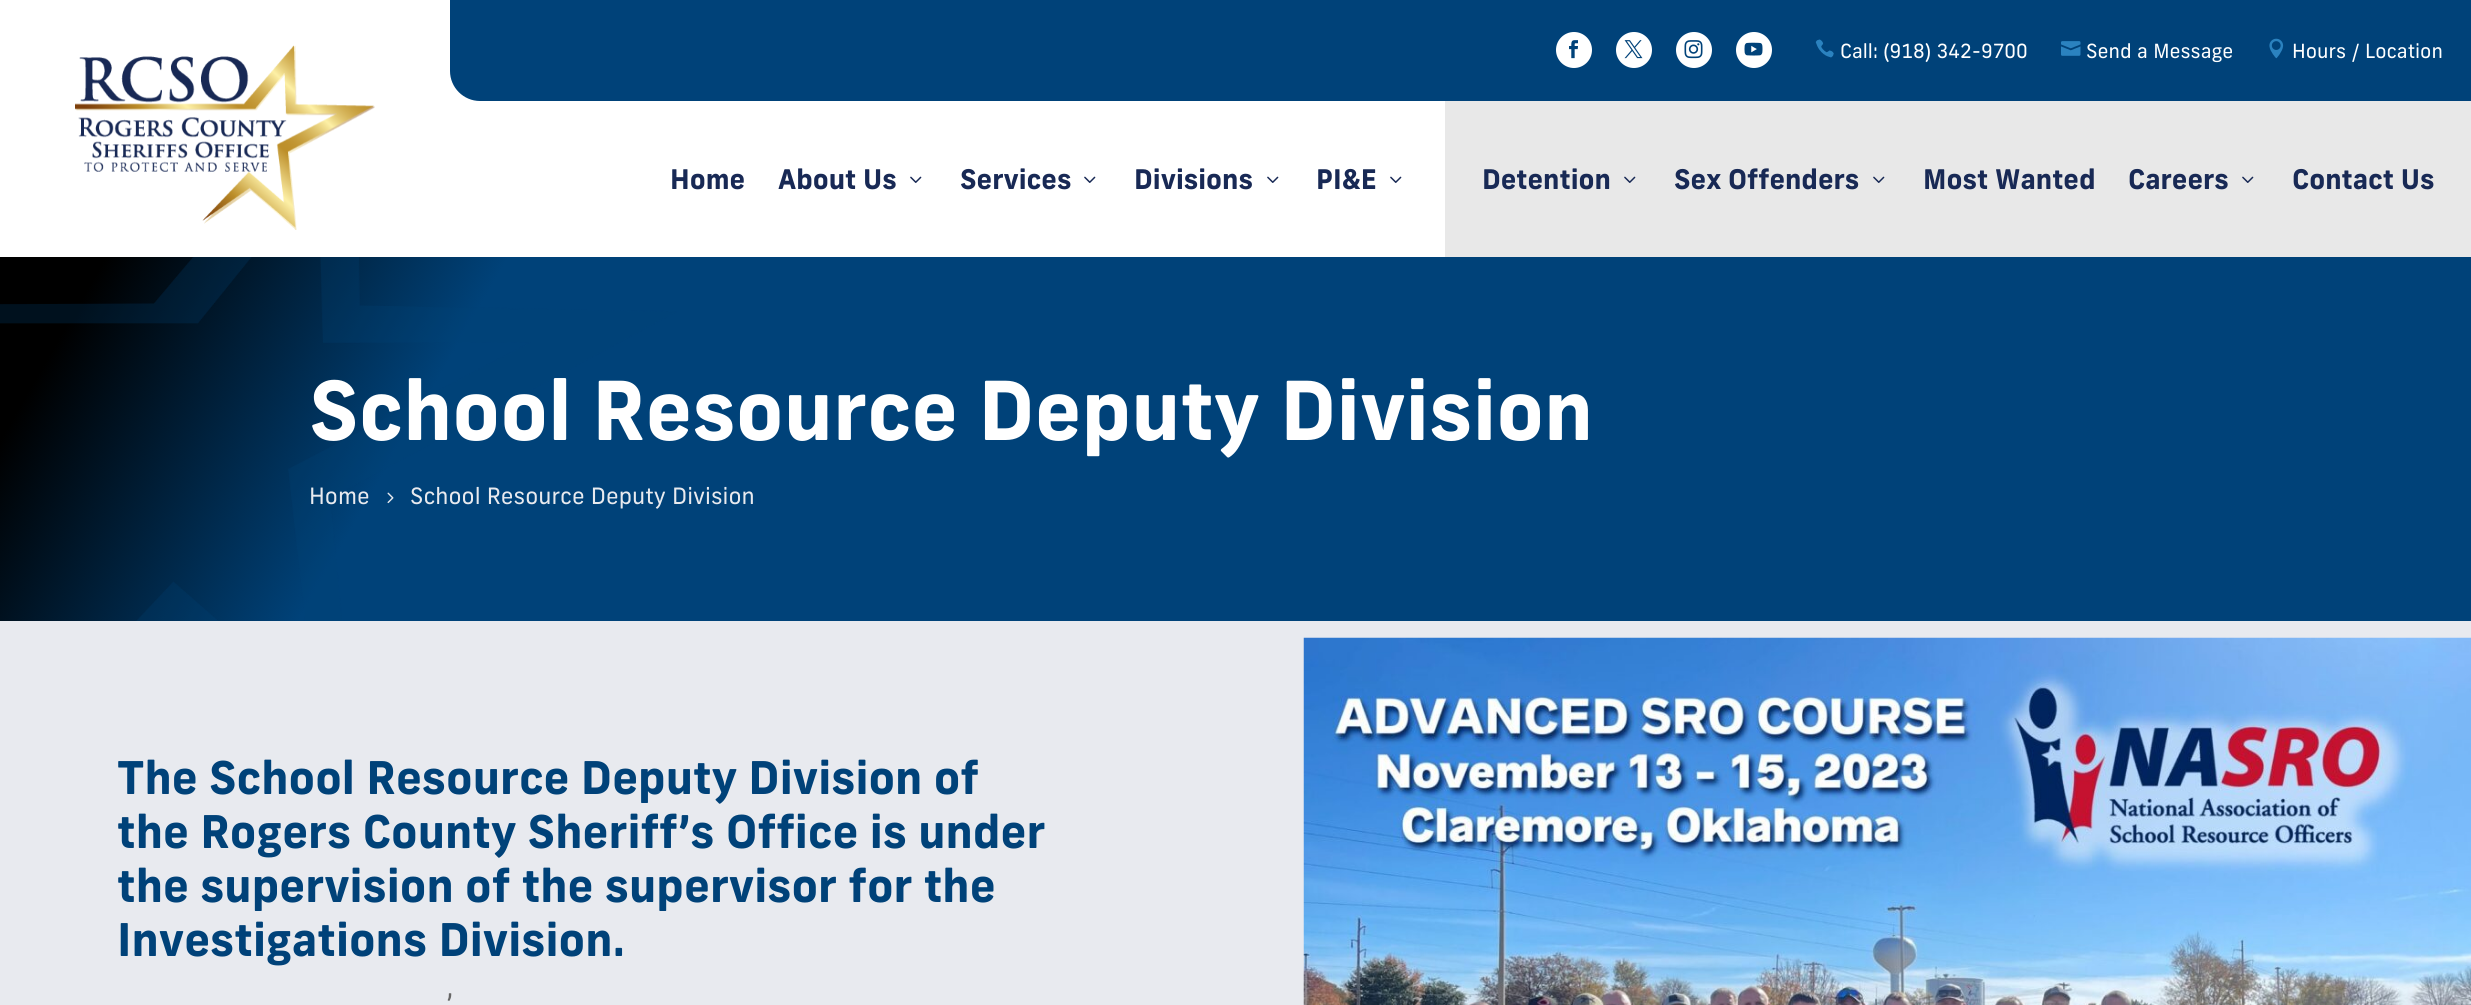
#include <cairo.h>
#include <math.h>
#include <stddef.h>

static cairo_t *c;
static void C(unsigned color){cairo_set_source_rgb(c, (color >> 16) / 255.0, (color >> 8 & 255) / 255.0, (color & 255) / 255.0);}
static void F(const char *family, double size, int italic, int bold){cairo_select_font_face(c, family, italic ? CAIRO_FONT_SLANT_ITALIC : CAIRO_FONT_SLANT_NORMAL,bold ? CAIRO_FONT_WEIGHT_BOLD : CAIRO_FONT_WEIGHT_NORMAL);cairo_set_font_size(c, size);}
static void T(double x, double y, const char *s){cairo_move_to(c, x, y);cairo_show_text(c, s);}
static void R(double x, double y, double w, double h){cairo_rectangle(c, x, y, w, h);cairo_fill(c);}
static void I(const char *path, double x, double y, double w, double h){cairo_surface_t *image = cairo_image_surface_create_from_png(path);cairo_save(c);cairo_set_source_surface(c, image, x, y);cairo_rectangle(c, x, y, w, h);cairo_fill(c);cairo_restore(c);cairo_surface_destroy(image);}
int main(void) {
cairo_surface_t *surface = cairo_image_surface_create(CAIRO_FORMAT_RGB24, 2471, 1005);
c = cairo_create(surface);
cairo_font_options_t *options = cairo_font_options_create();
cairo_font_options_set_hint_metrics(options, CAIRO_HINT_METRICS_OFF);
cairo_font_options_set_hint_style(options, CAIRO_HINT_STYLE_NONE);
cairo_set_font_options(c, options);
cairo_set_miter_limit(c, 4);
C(0xffffff);
cairo_paint(c);
I("1.png",75,45,300,185);
C(0x004279);
cairo_new_path(c);
cairo_move_to(c,450,0);
cairo_line_to(c,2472,0);
cairo_line_to(c,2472,101);
cairo_line_to(c,480,101);
cairo_curve_to(c,463.5,101,450,87.5,450,71);
cairo_close_path(c);
cairo_fill(c);
C(0xffffff);
cairo_arc(c,1574,50,18,0,2 * M_PI);
cairo_fill(c);
I("2.png",1569,40,9,19);
cairo_arc(c,1634,50,18,0,2 * M_PI);
cairo_fill(c);
I("3.png",1624,40,19,19);
cairo_arc(c,1694,50,18,0,2 * M_PI);
cairo_fill(c);
I("4.png",1684,40,19,19);
cairo_arc(c,1754,50,18,0,2 * M_PI);
cairo_fill(c);
I("5.png",1744,42,19,14);
I("6.png",1815,39,19,19);
F("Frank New",19.5,0,0);
T(1840,58,"Call: (918) 342-9700");
I("7.png",2061,41,20,15);
T(2086,58,"Send a Message");
I("8.png",2269,38,15,21);
T(2292,58,"Hours / Location");
F("Frank New",27,0,1);
C(0x182955);
T(670,189,"Home");
T(778,189,"About Us");
I("9.png",910,176,12,7);
T(960,189,"Services");
I("9.png",1084,176,12,7);
T(1134,189,"Divisions");
I("9.png",1267,176,12,7);
T(1316,189,"PI&E");
I("9.png",1390,176,12,7);
C(0xe8e8e8);
R(1445,101,1026,156);
C(0x182955);
T(1482,189,"Detention");
I("10.png",1624,176,12,7);
T(1674,189,"Sex Offenders");
I("10.png",1873,176,12,7);
T(1923,189,"Most Wanted");
T(2128,189,"Careers");
I("10.png",2242,176,12,7);
T(2292,189,"Contact Us");
I("11.png",0,257,2471,364);
F("Frank New",81,0,1);
C(0xffffff);
T(309,440,"School Resource Deputy Division");
F("Frank New",22.5,0,0);
C(0xe8eaef);
T(309,504,"Home");
I("12.png",387,492,7,12);
T(410,504,"School Resource Deputy Division");
R(0,621,2471,384);
F("Frank New",45,0,1);
C(0x004279);
T(117,794,"The School Resource Deputy Division of");
T(117,848,"the Rogers County Sheriff’s Office is under");
T(117,902,"the supervision of the supervisor for the");
T(117,956,"Investigations Division.");
F("Frank New",27,0,0);
C(0x666666);
T(446,1013,"’");
I("13.png",1303,637,1168,368);
cairo_surface_write_to_png(surface, "o.png");
cairo_font_options_destroy(options);
cairo_destroy(c);
cairo_surface_destroy(surface);
return 0;
}
